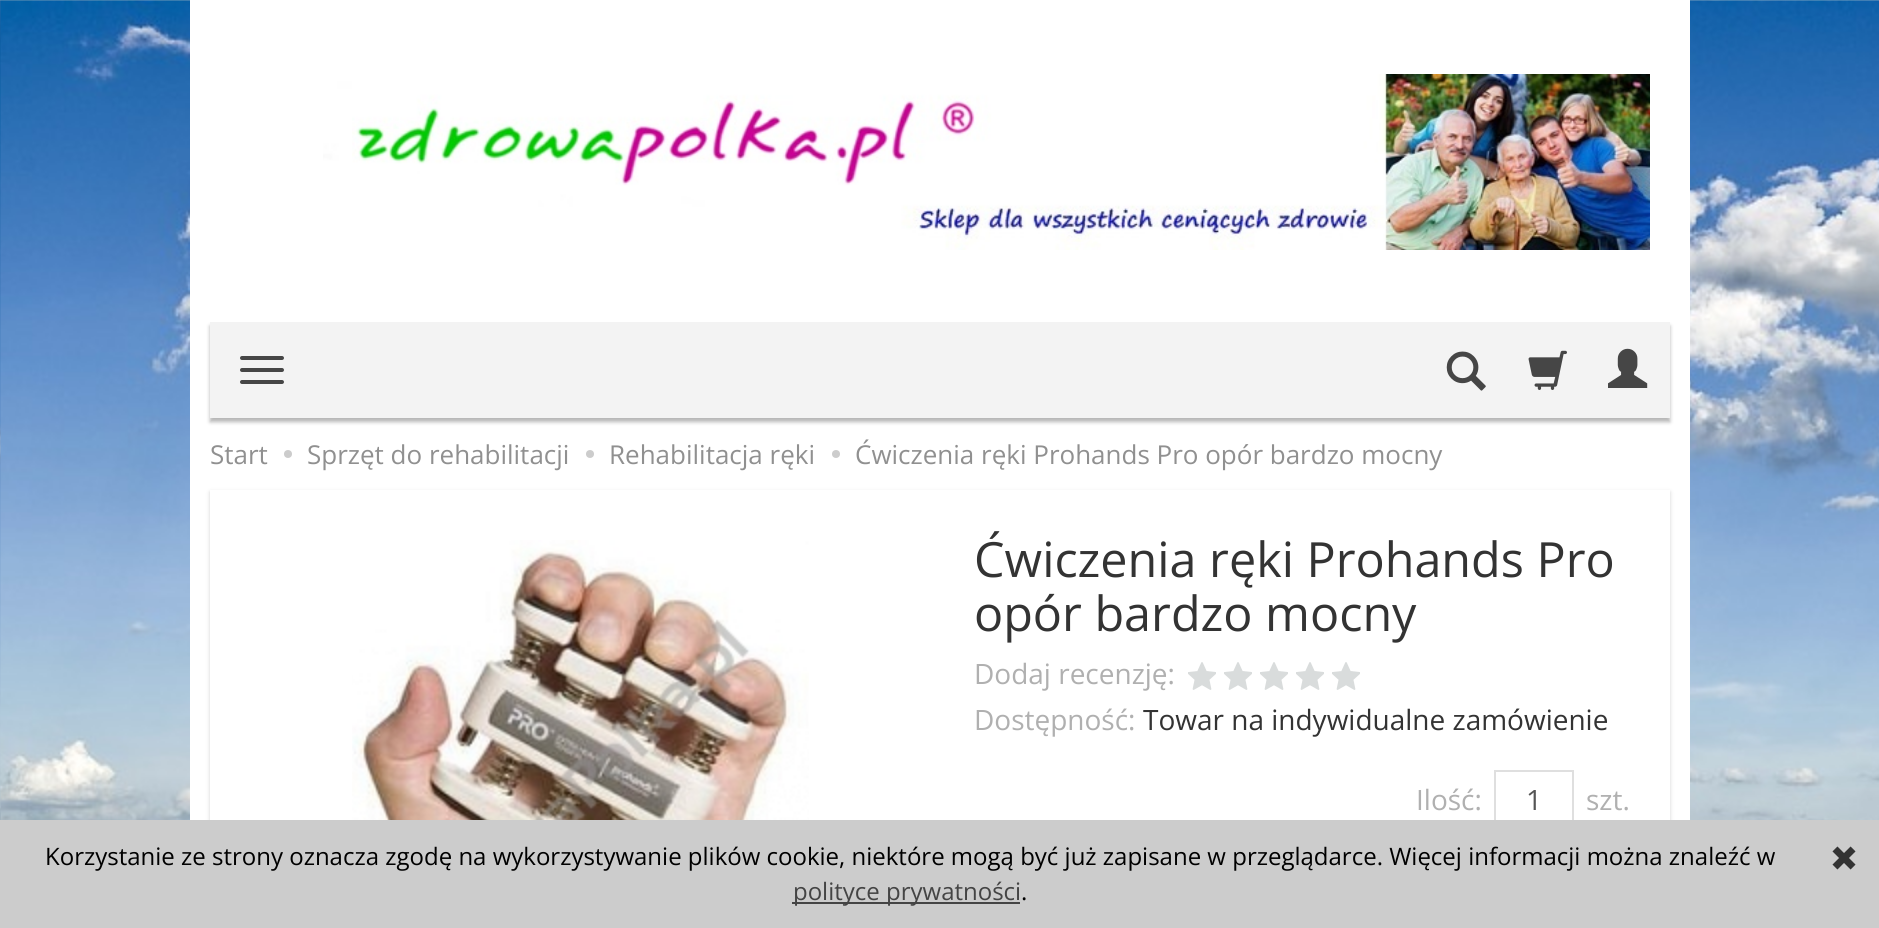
#include <cairo.h>
#include <math.h>
#include <stddef.h>

static cairo_t *c;
static void C(unsigned color){cairo_set_source_rgb(c, (color >> 16) / 255.0, (color >> 8 & 255) / 255.0, (color & 255) / 255.0);}
static void F(const char *family, double size, int italic, int bold){cairo_select_font_face(c, family, italic ? CAIRO_FONT_SLANT_ITALIC : CAIRO_FONT_SLANT_NORMAL,bold ? CAIRO_FONT_WEIGHT_BOLD : CAIRO_FONT_WEIGHT_NORMAL);cairo_set_font_size(c, size);}
static void T(double x, double y, const char *s){cairo_move_to(c, x, y);cairo_show_text(c, s);}
static void R(double x, double y, double w, double h){cairo_rectangle(c, x, y, w, h);cairo_fill(c);}
static void Q(double x, double y, double w, double h, double r){cairo_new_sub_path(c);cairo_arc(c, x + w - r, y + h - r, r, 0, M_PI / 2);cairo_arc(c, x + r, y + h - r, r, M_PI / 2, M_PI);cairo_arc(c, x + r, y + r, r, M_PI, 1.5 * M_PI);cairo_arc(c, x + w - r, y + r, r, 1.5 * M_PI, 2 * M_PI);cairo_close_path(c);}
static void S(double x, double y, double w, double h, double r, double blur, double alpha){cairo_push_group_with_content(c, CAIRO_CONTENT_ALPHA);cairo_set_operator(c, CAIRO_OPERATOR_SOURCE);for (int i = 15; i >= -15 && fmin(w, h) + blur * i / 3 > 0; i -= 2) {double e = blur * i / 6;cairo_set_source_rgba(c, 0, 0, 0, alpha * erfc((i - 1) / 8.5) / 2);Q(x - e, y - e, w + 2 * e, h + 2 * e, fmax(0, fmin(r + e + blur * .6, fmin(w, h) / 2 + e)));cairo_fill(c);}cairo_pattern_t *soft = cairo_pop_group(c);cairo_mask(c, soft);cairo_pattern_destroy(soft);}
static void I(const char *path, double x, double y, double w, double h){cairo_surface_t *image = cairo_image_surface_create_from_png(path);cairo_save(c);cairo_set_source_surface(c, image, x, y);cairo_rectangle(c, x, y, w, h);cairo_fill(c);cairo_restore(c);cairo_surface_destroy(image);}
int main(void) {
cairo_surface_t *surface = cairo_image_surface_create(CAIRO_FORMAT_RGB24, 1879, 928);
c = cairo_create(surface);
cairo_font_options_t *options = cairo_font_options_create();
cairo_font_options_set_hint_metrics(options, CAIRO_HINT_METRICS_OFF);
cairo_font_options_set_hint_style(options, CAIRO_HINT_STYLE_NONE);
cairo_set_font_options(c, options);
cairo_set_miter_limit(c, 4);
C(0xffffff);
cairo_paint(c);
I("1.png",0,0,1879,820);
C(0xffffff);
R(190,0,1500,418);
I("2.png",323,81,29,143);
I("3.png",352,74,1298,176);
R(190,418,1500,402);
C(0x000000);
S(210,326,1460,96,0,2,.29);
C(0xf3f3f3);
R(210,322,1460,96);
C(0x464646);
Q(240,356,44,4,2);
cairo_fill(c);
Q(240,368,44,4,2);
cairo_fill(c);
Q(240,380,44,4,2);
cairo_fill(c);
I("4.png",1446,351,40,40);
I("5.png",1528,350,39,40);
I("6.png",1608,348,40,40);
F("Open Sans",26,0,0);
C(0x909090);
T(210,464,"Start");
C(0xcccccc);
cairo_new_path(c);
cairo_arc(c,288,454,4,0,2 * M_PI);
cairo_fill(c);
C(0x909090);
T(307,464,"Sprzęt do rehabilitacji");
C(0xcccccc);
cairo_new_path(c);
cairo_arc(c,590,454,4,0,2 * M_PI);
cairo_fill(c);
C(0x909090);
T(609,464,"Rehabilitacja ręki");
C(0xcccccc);
cairo_new_path(c);
cairo_arc(c,836,454,4,0,2 * M_PI);
cairo_fill(c);
C(0x909090);
T(855,464,"Ćwiczenia ręki Prohands Pro opór bardzo mocny");
cairo_save(c);
cairo_set_fill_rule(c,CAIRO_FILL_RULE_EVEN_ODD);
cairo_new_path(c);
cairo_move_to(c,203,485);
cairo_line_to(c,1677,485);
cairo_line_to(c,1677,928);
cairo_line_to(c,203,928);
cairo_close_path(c);
cairo_move_to(c,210,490);
cairo_line_to(c,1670,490);
cairo_line_to(c,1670,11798);
cairo_line_to(c,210,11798);
cairo_close_path(c);
cairo_clip(c);
C(0xd3d3d3);
S(210,492,1460,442,0,2,1);
cairo_restore(c);
I("7.png",352,540,457,280);
F("Open Sans",48.5,0,0);
C(0x333333);
T(974,577,"Ćwiczenia ręki Prohands Pro");
T(974,631,"opór bardzo mocny");
F("Open Sans",28,0,0);
C(0xb0b0b0);
T(974,684,"Dodaj recenzję:");
I("8.png",1188,662,28,28);
I("8.png",1224,662,28,28);
I("8.png",1260,662,28,28);
I("8.png",1296,662,28,28);
I("8.png",1332,662,28,28);
T(974,730,"Dostępność:");
C(0x333333);
T(1143,730,"Towar na indywidualne zamówienie");
C(0xb0b0b0);
T(1416,810,"Ilość:");
cairo_rectangle(c,1495,771,78,58);
C(0xdfdfdf);
cairo_stroke(c);
C(0x555555);
T(1526,810,"1");
C(0xb0b0b0);
T(1586,810,"szt.");
C(0xcccccc);
R(0,820,1879,108);
F("Open Sans",24,0,0);
C(0x000000);
T(45,865,"Korzystanie ze strony oznacza zgodę na wykorzystywanie plików cookie, niektóre mogą być już zapisane w przeglądarce. Więcej informacji można znaleźć w");
C(0x444444);
R(792,902,228,2);
T(793,900,"polityce prywatności");
C(0x000000);
T(1021,900,".");
I("9.png",1832,846,24,24);
cairo_surface_write_to_png(surface, "o.png");
cairo_font_options_destroy(options);
cairo_destroy(c);
cairo_surface_destroy(surface);
return 0;
}
